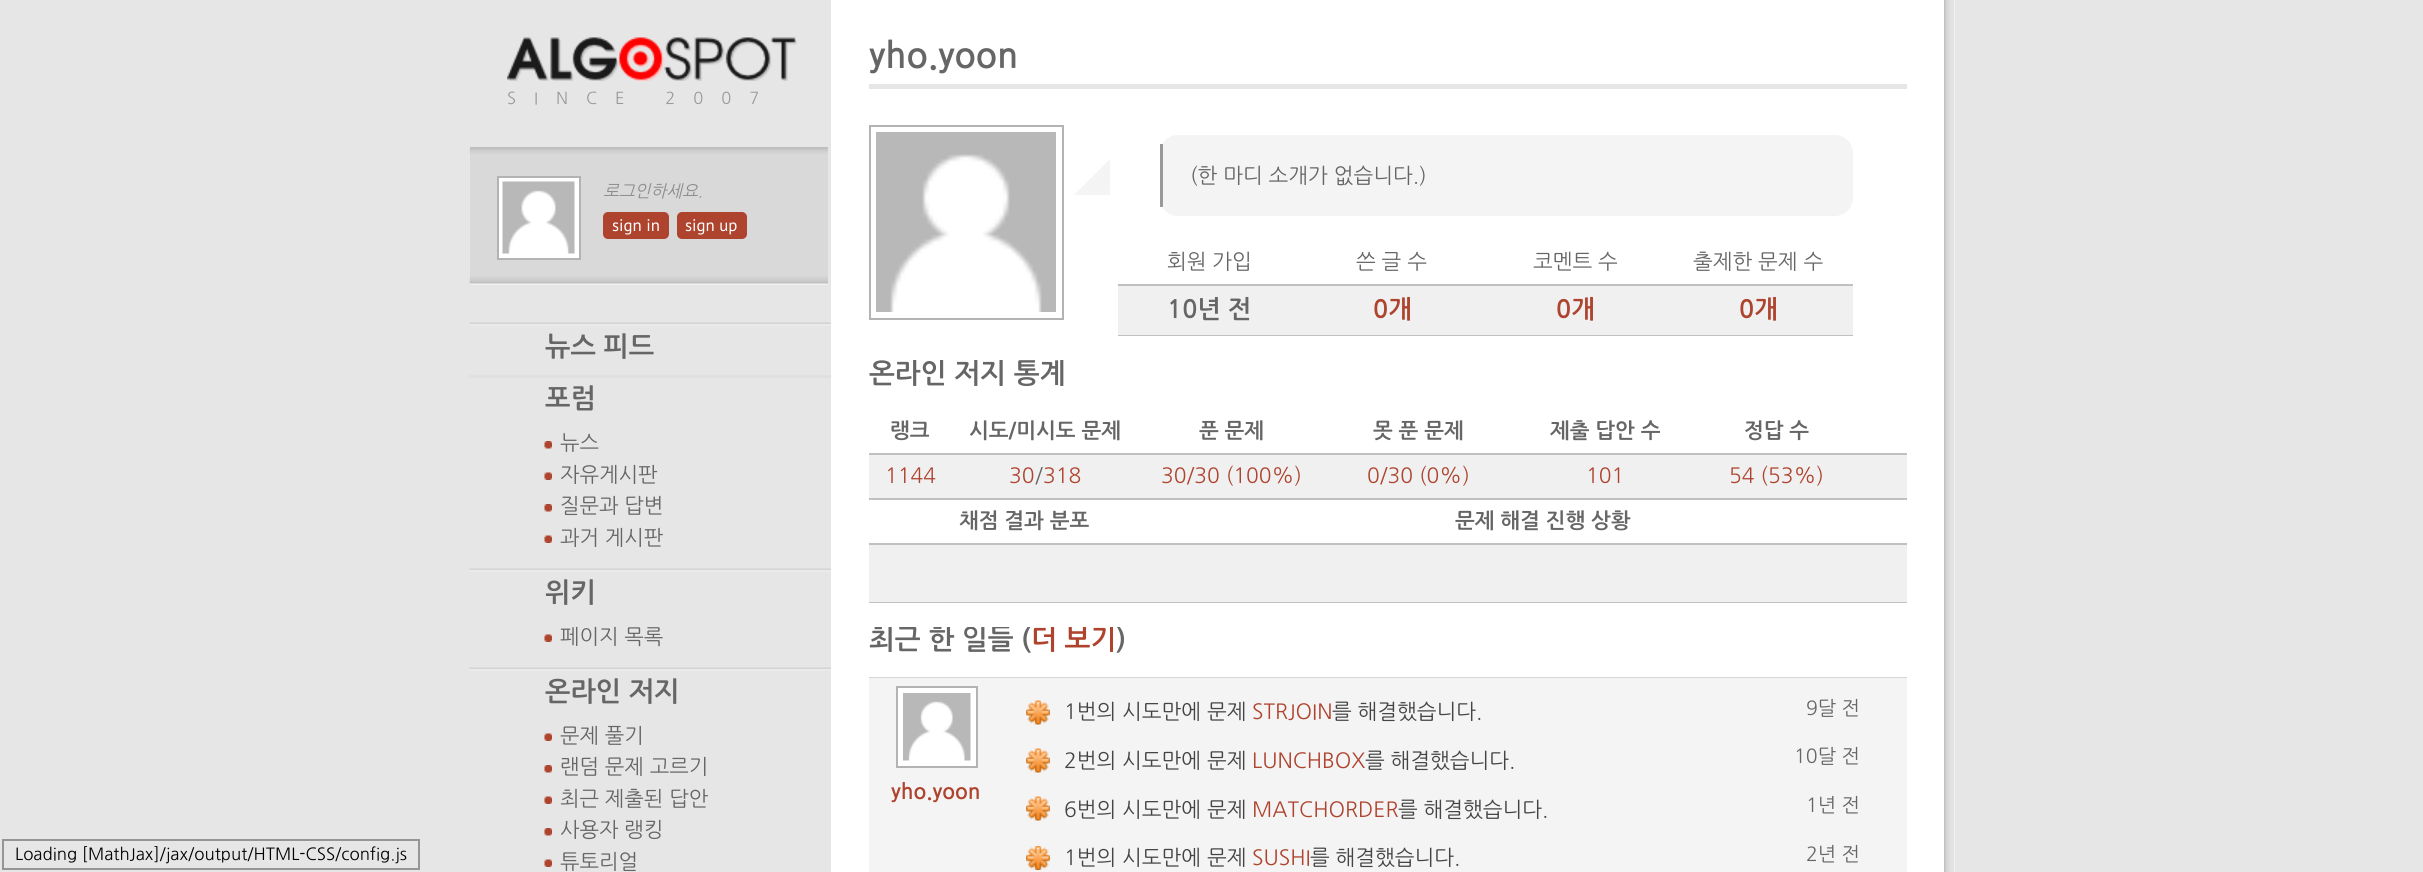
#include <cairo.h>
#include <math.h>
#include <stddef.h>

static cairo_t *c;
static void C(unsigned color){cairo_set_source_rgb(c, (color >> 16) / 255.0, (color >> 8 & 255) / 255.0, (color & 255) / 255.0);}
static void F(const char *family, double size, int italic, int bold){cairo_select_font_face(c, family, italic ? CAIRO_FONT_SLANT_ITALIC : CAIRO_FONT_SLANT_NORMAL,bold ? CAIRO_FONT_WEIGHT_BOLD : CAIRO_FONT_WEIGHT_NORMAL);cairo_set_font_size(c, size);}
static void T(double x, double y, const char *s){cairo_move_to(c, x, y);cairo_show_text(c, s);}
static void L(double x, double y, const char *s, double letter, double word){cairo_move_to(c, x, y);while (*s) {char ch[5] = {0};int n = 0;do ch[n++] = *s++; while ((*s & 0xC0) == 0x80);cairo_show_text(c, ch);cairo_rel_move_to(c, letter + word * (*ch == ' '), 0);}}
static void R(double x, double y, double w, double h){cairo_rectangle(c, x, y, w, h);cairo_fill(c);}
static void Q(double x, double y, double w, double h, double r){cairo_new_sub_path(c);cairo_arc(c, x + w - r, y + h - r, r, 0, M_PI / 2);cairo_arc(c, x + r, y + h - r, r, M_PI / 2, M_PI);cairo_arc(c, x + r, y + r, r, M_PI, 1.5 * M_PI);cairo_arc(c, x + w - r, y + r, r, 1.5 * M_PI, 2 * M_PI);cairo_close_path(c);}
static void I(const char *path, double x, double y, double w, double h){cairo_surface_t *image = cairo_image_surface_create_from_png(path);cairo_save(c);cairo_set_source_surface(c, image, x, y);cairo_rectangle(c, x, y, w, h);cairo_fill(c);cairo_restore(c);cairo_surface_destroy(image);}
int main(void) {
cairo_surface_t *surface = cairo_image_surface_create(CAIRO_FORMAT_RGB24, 2423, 872);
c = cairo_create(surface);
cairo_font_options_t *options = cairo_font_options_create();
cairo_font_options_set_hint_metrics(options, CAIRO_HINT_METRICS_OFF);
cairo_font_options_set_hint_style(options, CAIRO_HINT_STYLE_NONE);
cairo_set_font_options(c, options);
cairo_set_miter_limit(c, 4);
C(0xe6e6e6);
cairo_paint(c);
cairo_rectangle(c,3,840,416,29);
C(0x959595);
cairo_stroke(c);
F("NanumGothic",16.8,0,0);
C(0x000000);
T(15,860,"Loading [MathJax]/jax/output/HTML-CSS/config.js");
I("1.png",507,37,290,44);
F("NanumGothic",16.5,0,0);
C(0x999999);
L(507,104,"SINCE 2007",18,0);
C(0xd9d9d9);
R(470,149,358,135);
I("2.png",469,149,359,136);
C(0xbfbfbf);
R(470,147,358,2);
C(0xffffff);
cairo_rectangle(c,498,177,82,82);
cairo_fill_preserve(c);
C(0xb3b3b3);
cairo_stroke(c);
I("3.png",502,181,73,73);
F("NanumGothic",16.8,1,0);
C(0x8c8c8c);
T(603,197,"로그인하세요.");
C(0xae432e);
Q(603,212,66,27,5);
cairo_fill(c);
F("PT Sans",16.8,0,0);
C(0xffffff);
T(612,231,"sign in");
C(0xae432e);
Q(677,212,70,27,5);
cairo_fill(c);
C(0xffffff);
T(685,231,"sign up");
I("4.png",469,322,362,4);
F("NanumGothic",27,0,1);
C(0x666666);
T(545,356,"뉴스 피드");
C(0xe1e0e0);
R(469,375,362,3);
C(0x666666);
T(545,408,"포럼");
I("5.png",544,441,8,8);
F("NanumGothic",20.75,0,0);
T(560,450,"뉴스");
I("6.png",544,472,8,8);
T(560,482,"자유게시판");
I("5.png",544,504,8,8);
T(560,513,"질문과 답변");
I("6.png",544,535,8,8);
T(560,545,"과거 게시판");
I("4.png",469,568,362,4);
F("NanumGothic",27,0,1);
T(545,602,"위키");
I("6.png",544,634,8,8);
F("NanumGothic",20.75,0,0);
T(560,644,"페이지 목록");
I("4.png",469,667,362,4);
F("NanumGothic",27,0,1);
T(545,701,"온라인 저지");
I("6.png",544,733,8,8);
F("NanumGothic",20.75,0,0);
T(560,743,"문제 풀기");
I("5.png",544,765,8,8);
T(560,774,"랜덤 문제 고르기");
I("6.png",544,796,8,8);
T(560,806,"최근 제출된 답안");
I("5.png",544,828,8,8);
T(560,837,"사용자 랭킹");
I("6.png",544,859,8,8);
T(560,869,"튜토리얼");
C(0xffffff);
R(831,0,1124,872);
I("7.png",1944,0,11,872);
C(0xe6e6e6);
R(869,84,1038,5);
F("NanumGothic",35,0,1);
C(0x666666);
T(869,68,"yho.yoon");
cairo_rectangle(c,870,126,193,193);
C(0xb3b3b3);
cairo_stroke(c);
I("8.png",876,132,180,180);
C(0xf4f4f4);
Q(1160,135,693,81,18);
cairo_fill(c);
C(0x999999);
R(1160,144,3,63);
C(0xf4f4f4);
cairo_new_path(c);
cairo_move_to(c,1110,159);
cairo_line_to(c,1110,195);
cairo_line_to(c,1092,177);
cairo_close_path(c);
cairo_fill(c);
cairo_new_path(c);
cairo_move_to(c,1110,195);
cairo_line_to(c,1074,195);
cairo_line_to(c,1092,177);
cairo_close_path(c);
cairo_fill(c);
F("NanumGothic",21,0,0);
C(0x666666);
T(1190,183,"(한 마디 소개가 없습니다.)");
T(1167,269,"회원 가입");
T(1356,269,"쓴 글 수");
T(1533,269,"코멘트 수");
T(1693,269,"출제한 문제 수");
C(0xf0f0f0);
R(1118,286,735,49);
C(0xc0c0c0);
R(1118,284,735,2);
R(1118,335,735,1);
F("NanumGothic",25,0,1);
C(0x666666);
T(1167,318,"10년 전");
C(0xae432e);
T(1373,318,"0개");
T(1556,318,"0개");
T(1739,318,"0개");
cairo_save(c);
cairo_rectangle(c,869,360,1038,243);
cairo_clip(c);
F("NanumGothic",27.5,0,1);
C(0x666666);
T(869,383,"온라인 저지 통계");
cairo_restore(c);
F("NanumGothic",21,0,1);
C(0x666666);
T(890,438,"랭크");
T(969,438,"시도/미시도 문제");
T(1199,438,"푼 문제");
T(1373,438,"못 푼 문제");
T(1550,438,"제출 답안 수");
T(1744,438,"정답 수");
C(0xf0f0f0);
R(869,455,1038,43);
C(0xc0c0c0);
R(869,453,1038,2);
R(869,498,1038,2);
F("NanumGothic",21,0,0);
C(0xae432e);
T(885,483,"1144");
T(1009,483,"30");
C(0x666666);
T(1035,483,"/");
C(0xae432e);
T(1043,483,"318");
T(1161,483,"30/30 (100%)");
T(1367,483,"0/30 (0%)");
T(1586,483,"101");
T(1729,483,"54 (53%)");
F("NanumGothic",21,0,1);
C(0x666666);
T(959,528,"채점 결과 분포");
T(1455,528,"문제 해결 진행 상황");
C(0xf0f0f0);
R(869,545,1038,57);
C(0xc0c0c0);
R(869,543,1038,2);
R(869,602,1038,1);
cairo_save(c);
cairo_rectangle(c,869,627,1038,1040);
cairo_clip(c);
F("NanumGothic",27.5,0,1);
C(0x666666);
T(869,649,"최근 한 일들 (");
C(0xae432e);
T(1031,649,"더 보기");
C(0x666666);
T(1116,649,")");
cairo_restore(c);
C(0xd6d6d6);
R(869,677,1038,1);
C(0xf4f4f4);
R(869,678,1038,194);
C(0xffffff);
cairo_rectangle(c,897,687,80,80);
cairo_fill_preserve(c);
C(0xb3b3b3);
cairo_stroke(c);
I("9.png",903,693,68,68);
C(0xae432e);
T(891,799,"yho.yoon");
I("10.png",1026,700,24,25);
F("NanumGothic",21,0,0);
C(0x444444);
T(1064,719,"1번의 시도만에 문제");
C(0xae432e);
T(1252,719,"STRJOIN");
C(0x444444);
T(1332,719,"를 해결했습니다.");
F("NanumGothic",19.5,0,0);
C(0x666666);
T(1806,715,"9달 전");
I("10.png",1026,748,24,25);
F("NanumGothic",21,0,0);
C(0x444444);
T(1064,768,"2번의 시도만에 문제");
C(0xae432e);
T(1252,768,"LUNCHBOX");
C(0x444444);
T(1365,768,"를 해결했습니다.");
F("NanumGothic",19.5,0,0);
C(0x666666);
T(1794,763,"10달 전");
I("10.png",1026,796,24,25);
F("NanumGothic",21,0,0);
C(0x444444);
T(1064,817,"6번의 시도만에 문제");
C(0xae432e);
T(1252,817,"MATCHORDER");
C(0x444444);
T(1398,817,"를 해결했습니다.");
F("NanumGothic",19.5,0,0);
C(0x666666);
T(1806,812,"1년 전");
I("11.png",1026,846,24,24);
F("NanumGothic",21,0,0);
C(0x444444);
T(1064,865,"1번의 시도만에 문제");
C(0xae432e);
T(1252,865,"SUSHI");
C(0x444444);
T(1310,865,"를 해결했습니다.");
F("NanumGothic",19.5,0,0);
C(0x666666);
T(1806,861,"2년 전");
cairo_surface_write_to_png(surface, "o.png");
cairo_font_options_destroy(options);
cairo_destroy(c);
cairo_surface_destroy(surface);
return 0;
}
